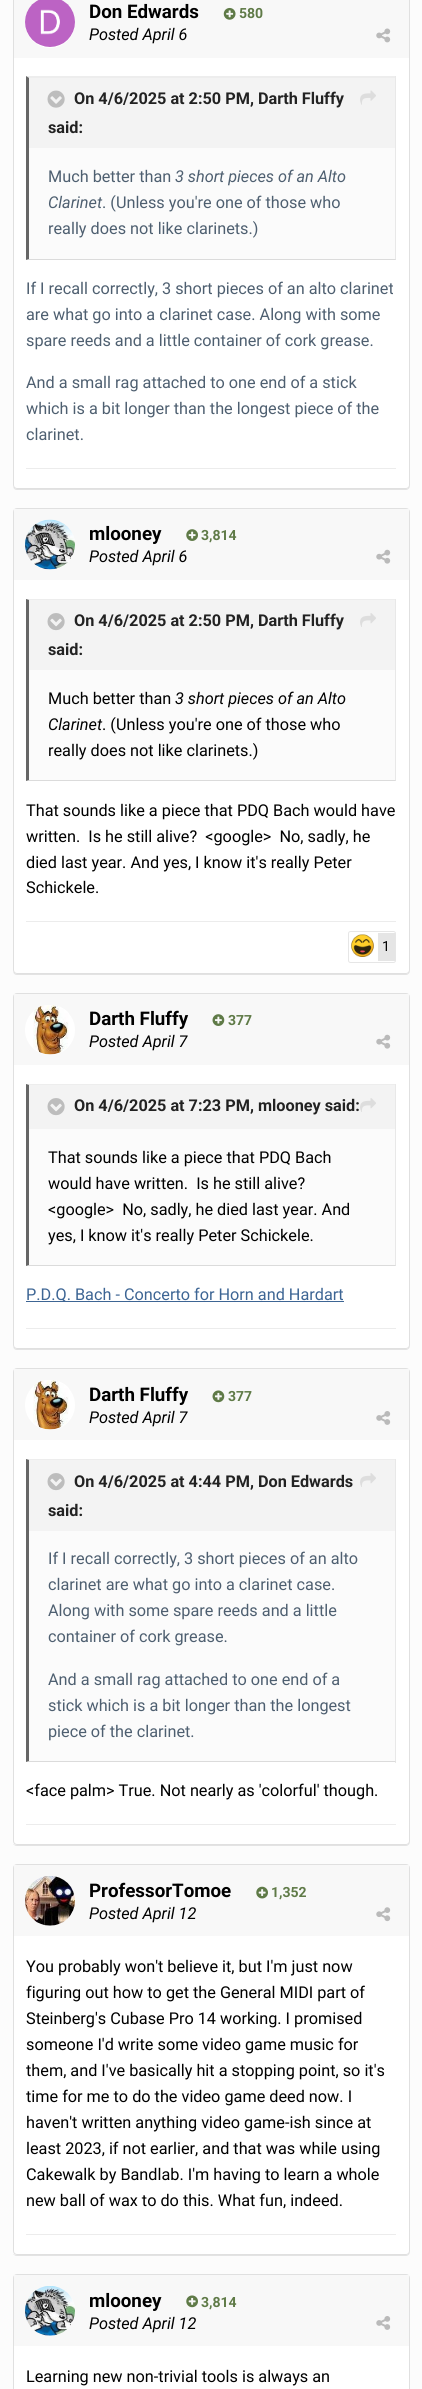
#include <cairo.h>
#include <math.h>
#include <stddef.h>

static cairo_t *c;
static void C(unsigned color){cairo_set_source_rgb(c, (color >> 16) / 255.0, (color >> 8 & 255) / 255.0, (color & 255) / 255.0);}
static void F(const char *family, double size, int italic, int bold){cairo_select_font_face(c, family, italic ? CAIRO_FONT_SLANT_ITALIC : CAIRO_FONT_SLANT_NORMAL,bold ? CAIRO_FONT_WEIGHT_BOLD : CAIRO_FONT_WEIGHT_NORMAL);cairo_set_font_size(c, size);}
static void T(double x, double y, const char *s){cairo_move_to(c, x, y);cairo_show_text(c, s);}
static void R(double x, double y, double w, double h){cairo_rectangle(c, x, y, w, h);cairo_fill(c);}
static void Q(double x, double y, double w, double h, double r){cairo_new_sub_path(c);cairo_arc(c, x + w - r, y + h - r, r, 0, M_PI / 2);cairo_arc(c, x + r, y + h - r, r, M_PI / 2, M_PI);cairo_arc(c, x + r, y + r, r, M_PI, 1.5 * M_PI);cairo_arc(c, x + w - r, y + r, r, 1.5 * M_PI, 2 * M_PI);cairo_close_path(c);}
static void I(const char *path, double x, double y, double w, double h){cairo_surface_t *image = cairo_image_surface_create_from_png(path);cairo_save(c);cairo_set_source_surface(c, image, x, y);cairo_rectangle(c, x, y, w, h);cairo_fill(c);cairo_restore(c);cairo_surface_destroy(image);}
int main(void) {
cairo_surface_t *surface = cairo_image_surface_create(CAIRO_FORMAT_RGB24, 422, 2389);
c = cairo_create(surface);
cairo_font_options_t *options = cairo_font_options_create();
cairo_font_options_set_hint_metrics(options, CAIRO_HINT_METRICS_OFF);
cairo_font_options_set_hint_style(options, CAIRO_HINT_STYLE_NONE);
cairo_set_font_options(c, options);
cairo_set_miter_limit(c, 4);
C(0xfcfcfc);
cairo_paint(c);
C(0xe3e3e3);
cairo_new_path(c);
cairo_move_to(c,13,487);
cairo_curve_to(c,14,489,15,490,17,490);
cairo_line_to(c,406,490);
cairo_curve_to(c,408,490,410,488,410,486);
cairo_line_to(c,410,485);
cairo_curve_to(c,410,487,408,489,406,489);
cairo_line_to(c,16,489);
cairo_close_path(c);
cairo_fill(c);
C(0xffffff);
Q(13.5,-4.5,396,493,3.5);
cairo_fill_preserve(c);
C(0xe0e0e0);
cairo_set_line_width(c,1);
cairo_stroke(c);
C(0xf8f8f8);
R(14,0,395,58);
C(0xffffff);
cairo_arc(c,50,23,25,0,2 * M_PI);
cairo_fill(c);
I("1.png",25,0,50,47);
F("Roboto",18.75,0,1);
C(0x000000);
T(89,18,"Don Edwards");
I("2.png",223,7,13,13);
F("Roboto",14,0,1);
C(0x5f7a47);
T(239,18,"580");
F("Roboto",16.25,1,0);
C(0x000000);
T(89,40,"Posted April 6");
I("3.png",376,28,15,15);
C(0xfbfbfb);
R(29,148,366,111);
C(0xededed);
cairo_new_path(c);
cairo_move_to(c,26,76);
cairo_line_to(c,396,76);
cairo_line_to(c,395,78);
cairo_line_to(c,29,78);
cairo_close_path(c);
cairo_fill(c);
C(0xe8e8e8);
R(395,76,1,184);
C(0xdbdbdb);
cairo_new_path(c);
cairo_move_to(c,396,260);
cairo_line_to(c,26,260);
cairo_line_to(c,29,259);
cairo_line_to(c,395,259);
cairo_close_path(c);
cairo_fill(c);
C(0x666666);
cairo_new_path(c);
cairo_move_to(c,26,260);
cairo_line_to(c,26,76);
cairo_line_to(c,29,78);
cairo_line_to(c,29,259);
cairo_close_path(c);
cairo_fill(c);
C(0xf3f3f3);
R(29,78,366,70);
I("4.png",47,90,18,18);
F("Roboto",16.25,0,1);
C(0x222222);
T(74,104,"On 4/6/2025 at 2:50 PM, Darth Fluffy");
I("5.png",360,90,16,15);
T(48,133,"said:");
F("Roboto",16.25,0,0);
C(0x4e5f70);
T(48,182,"Much better than");
F("Roboto",16.25,1,0);
T(175,182,"3 short pieces of an Alto");
T(48,208,"Clarinet");
F("Roboto",16.25,0,0);
T(102,208,". (Unless you're one of those who");
T(48,234,"really does not like clarinets.)");
T(26,294,"If I recall correctly, 3 short pieces of an alto clarinet");
T(26,320,"are what go into a clarinet case. Along with some");
T(26,346,"spare reeds and a little container of cork grease.");
T(26,388,"And a small rag attached to one end of a stick");
T(26,414,"which is a bit longer than the longest piece of the");
T(26,440,"clarinet.");
C(0xececec);
R(26,468,370,1);
C(0xe3e3e3);
cairo_new_path(c);
cairo_move_to(c,13,972);
cairo_curve_to(c,14,974,15,975,17,975);
cairo_line_to(c,406,975);
cairo_curve_to(c,408,975,410,973,410,971);
cairo_line_to(c,410,970);
cairo_curve_to(c,410,972,408,974,406,974);
cairo_line_to(c,16,974);
cairo_close_path(c);
cairo_fill(c);
C(0xffffff);
Q(13.5,508.5,396,465,3.5);
cairo_fill_preserve(c);
C(0xe0e0e0);
cairo_stroke(c);
C(0xf8f8f8);
R(14,509,395,71);
C(0xffffff);
cairo_arc(c,50,545,25,0,2 * M_PI);
cairo_fill(c);
I("6.png",25,519,50,51);
F("Roboto",18.75,0,1);
C(0x000000);
T(89,540,"mlooney");
I("7.png",186,529,12,12);
F("Roboto",14,0,1);
C(0x5f7a47);
T(201,540,"3,814");
F("Roboto",16.25,1,0);
C(0x000000);
T(89,562,"Posted April 6");
I("8.png",376,549,15,15);
C(0xfbfbfb);
R(29,670,366,110);
C(0xededed);
cairo_new_path(c);
cairo_move_to(c,26,599);
cairo_line_to(c,396,599);
cairo_line_to(c,395,600);
cairo_line_to(c,29,600);
cairo_close_path(c);
cairo_fill(c);
C(0xe8e8e8);
R(395,599,1,182);
C(0xdbdbdb);
cairo_new_path(c);
cairo_move_to(c,396,781);
cairo_line_to(c,26,781);
cairo_line_to(c,29,780);
cairo_line_to(c,395,780);
cairo_close_path(c);
cairo_fill(c);
C(0x666666);
cairo_new_path(c);
cairo_move_to(c,26,781);
cairo_line_to(c,26,599);
cairo_line_to(c,29,600);
cairo_line_to(c,29,780);
cairo_close_path(c);
cairo_fill(c);
C(0xf3f3f3);
R(29,600,366,70);
I("9.png",47,613,18,18);
F("Roboto",16.25,0,1);
C(0x222222);
T(74,626,"On 4/6/2025 at 2:50 PM, Darth Fluffy");
I("10.png",360,613,16,14);
T(48,655,"said:");
F("Roboto",16.25,0,0);
C(0x000000);
T(48,704,"Much better than");
F("Roboto",16.25,1,0);
T(175,704,"3 short pieces of an Alto");
T(48,730,"Clarinet");
F("Roboto",16.25,0,0);
T(102,730,". (Unless you're one of those who");
T(48,756,"really does not like clarinets.)");
T(26,816,"That sounds like a piece that PDQ Bach would have");
T(26,842,"written.  Is he still alive?  <google>  No, sadly, he");
T(26,868,"died last year. And yes, I know it's really Peter");
T(26,893,"Schickele.");
C(0xececec);
R(26,921,370,1);
Q(348.5,931.5,47,31,2);
C(0xe6e6e6);
cairo_stroke(c);
I("11.png",351,934,23,23);
C(0xe5e5e5);
R(378,933,17,28);
F("Roboto",14,0,0);
C(0x000000);
T(382,951,"1");
C(0xe3e3e3);
cairo_new_path(c);
cairo_move_to(c,13,1347);
cairo_curve_to(c,14,1349,15,1350,17,1350);
cairo_line_to(c,406,1350);
cairo_curve_to(c,408,1350,410,1348,410,1346);
cairo_line_to(c,410,1345);
cairo_curve_to(c,410,1347,408,1349,406,1349);
cairo_line_to(c,16,1349);
cairo_close_path(c);
cairo_fill(c);
C(0xffffff);
Q(13.5,993.5,396,355,3.5);
cairo_fill_preserve(c);
C(0xe0e0e0);
cairo_stroke(c);
C(0xf8f8f8);
R(14,994,395,71);
C(0xffffff);
cairo_arc(c,50,1030,25,0,2 * M_PI);
cairo_fill(c);
I("12.png",33,1005,36,50);
F("Roboto",18.75,0,1);
C(0x000000);
T(89,1025,"Darth Fluffy");
I("13.png",212,1014,13,12);
F("Roboto",14,0,1);
C(0x5f7a47);
T(228,1025,"377");
F("Roboto",16.25,1,0);
C(0x000000);
T(89,1047,"Posted April 7");
I("8.png",376,1034,15,15);
C(0xfbfbfb);
R(29,1129,366,136);
C(0xededed);
cairo_new_path(c);
cairo_move_to(c,26,1084);
cairo_line_to(c,396,1084);
cairo_line_to(c,395,1085);
cairo_line_to(c,29,1085);
cairo_close_path(c);
cairo_fill(c);
C(0xe8e8e8);
R(395,1084,1,182);
C(0xdbdbdb);
cairo_new_path(c);
cairo_move_to(c,396,1266);
cairo_line_to(c,26,1266);
cairo_line_to(c,29,1265);
cairo_line_to(c,395,1265);
cairo_close_path(c);
cairo_fill(c);
C(0x666666);
cairo_new_path(c);
cairo_move_to(c,26,1266);
cairo_line_to(c,26,1084);
cairo_line_to(c,29,1085);
cairo_line_to(c,29,1265);
cairo_close_path(c);
cairo_fill(c);
C(0xf3f3f3);
R(29,1085,366,44);
I("9.png",47,1098,18,18);
F("Roboto",16.25,0,1);
C(0x222222);
T(74,1111,"On 4/6/2025 at 7:23 PM, mlooney said:");
I("10.png",360,1098,16,14);
F("Roboto",16.25,0,0);
C(0x000000);
T(48,1163,"That sounds like a piece that PDQ Bach");
T(48,1189,"would have written.  Is he still alive?");
T(48,1215,"<google>  No, sadly, he died last year. And");
T(48,1241,"yes, I know it's really Peter Schickele.");
C(0x3d6594);
R(26,1301,318,1);
T(26,1300,"P.D.Q. Bach - Concerto for Horn and Hardart");
C(0xececec);
R(26,1328,370,1);
C(0xe3e3e3);
cairo_new_path(c);
cairo_move_to(c,13,1844);
cairo_curve_to(c,14,1845,15,1846,17,1846);
cairo_line_to(c,406,1846);
cairo_curve_to(c,408,1846,410,1844,410,1842);
cairo_line_to(c,410,1841);
cairo_curve_to(c,410,1843,408,1845,406,1845);
cairo_line_to(c,16,1845);
cairo_curve_to(c,15,1845,14,1844,13,1844);
cairo_close_path(c);
cairo_fill(c);
C(0xffffff);
Q(13.5,1368.5,396,476,3.5);
cairo_fill_preserve(c);
C(0xe0e0e0);
cairo_stroke(c);
C(0xf8f8f8);
R(14,1369,395,71);
C(0xffffff);
cairo_arc(c,50,1405,25,0,2 * M_PI);
cairo_fill(c);
I("14.png",33,1380,36,50);
F("Roboto",18.75,0,1);
C(0x000000);
T(89,1401,"Darth Fluffy");
I("15.png",212,1390,13,13);
F("Roboto",14,0,1);
C(0x5f7a47);
T(228,1401,"377");
F("Roboto",16.25,1,0);
C(0x000000);
T(89,1423,"Posted April 7");
I("16.png",376,1411,15,14);
C(0xfbfbfb);
R(29,1531,366,230);
C(0xededed);
cairo_new_path(c);
cairo_move_to(c,26,1459);
cairo_line_to(c,396,1459);
cairo_line_to(c,395,1460);
cairo_line_to(c,29,1460);
cairo_close_path(c);
cairo_fill(c);
C(0xe8e8e8);
R(395,1459,1,304);
C(0xdbdbdb);
cairo_new_path(c);
cairo_move_to(c,396,1762);
cairo_line_to(c,26,1762);
cairo_line_to(c,29,1761);
cairo_line_to(c,395,1761);
cairo_close_path(c);
cairo_fill(c);
C(0x666666);
cairo_new_path(c);
cairo_move_to(c,26,1762);
cairo_line_to(c,26,1459);
cairo_line_to(c,29,1460);
cairo_line_to(c,29,1761);
cairo_close_path(c);
cairo_fill(c);
C(0xf3f3f3);
R(29,1460,366,71);
I("9.png",47,1473,18,18);
F("Roboto",16.25,0,1);
C(0x222222);
T(74,1487,"On 4/6/2025 at 4:44 PM, Don Edwards");
I("10.png",360,1473,16,14);
T(48,1516,"said:");
F("Roboto",16.25,0,0);
C(0x4e5f70);
T(48,1564,"If I recall correctly, 3 short pieces of an alto");
T(48,1590,"clarinet are what go into a clarinet case.");
T(48,1616,"Along with some spare reeds and a little");
T(48,1642,"container of cork grease.");
T(48,1685,"And a small rag attached to one end of a");
T(48,1711,"stick which is a bit longer than the longest");
T(48,1737,"piece of the clarinet.");
C(0x000000);
T(26,1796,"<face palm> True. Not nearly as 'colorful' though.");
C(0xececec);
R(26,1824,370,1);
C(0xe3e3e3);
cairo_new_path(c);
cairo_move_to(c,13,2254);
cairo_curve_to(c,14,2255,15,2256,17,2256);
cairo_line_to(c,406,2256);
cairo_curve_to(c,408,2256,410,2254,410,2252);
cairo_line_to(c,410,2251);
cairo_curve_to(c,410,2253,408,2255,406,2255);
cairo_line_to(c,16,2255);
cairo_curve_to(c,15,2255,14,2254,13,2254);
cairo_close_path(c);
cairo_fill(c);
C(0xffffff);
Q(13.5,1864.5,396,390,3.5);
cairo_fill_preserve(c);
C(0xe0e0e0);
cairo_stroke(c);
C(0xf8f8f8);
R(14,1865,395,71);
C(0xffffff);
cairo_arc(c,50,1901,25,0,2 * M_PI);
cairo_fill(c);
I("17.png",25,1876,50,50);
F("Roboto",18.75,0,1);
C(0x000000);
T(89,1897,"ProfessorTomoe");
I("18.png",256,1886,12,13);
F("Roboto",14,0,1);
C(0x5f7a47);
T(271,1897,"1,352");
F("Roboto",16.25,1,0);
C(0x000000);
T(89,1919,"Posted April 12");
I("19.png",376,1907,15,15);
F("Roboto",16.25,0,0);
T(26,1972,"You probably won't believe it, but I'm just now");
T(26,1998,"figuring out how to get the General MIDI part of");
T(26,2024,"Steinberg's Cubase Pro 14 working. I promised");
T(26,2050,"someone I'd write some video game music for");
T(26,2076,"them, and I've basically hit a stopping point, so it's");
T(26,2102,"time for me to do the video game deed now. I");
T(26,2128,"haven't written anything video game-ish since at");
T(26,2154,"least 2023, if not earlier, and that was while using");
T(26,2180,"Cakewalk by Bandlab. I'm having to learn a whole");
T(26,2206,"new ball of wax to do this. What fun, indeed.");
C(0xececec);
R(26,2234,370,1);
C(0xffffff);
Q(13.5,2274.5,396,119,3.5);
cairo_fill_preserve(c);
C(0xe0e0e0);
cairo_stroke(c);
C(0xf8f8f8);
R(14,2275,395,71);
C(0xffffff);
cairo_arc(c,50,2311,25,0,2 * M_PI);
cairo_fill(c);
I("20.png",25,2286,50,50);
F("Roboto",18.75,0,1);
C(0x000000);
T(89,2307,"mlooney");
I("21.png",186,2295,12,13);
F("Roboto",14,0,1);
C(0x5f7a47);
T(201,2307,"3,814");
F("Roboto",16.25,1,0);
C(0x000000);
T(89,2329,"Posted April 12");
I("16.png",376,2316,15,14);
F("Roboto",16.25,0,0);
T(26,2382,"Learning new non-trivial tools is always an");
cairo_surface_write_to_png(surface, "o.png");
cairo_font_options_destroy(options);
cairo_destroy(c);
cairo_surface_destroy(surface);
return 0;
}
